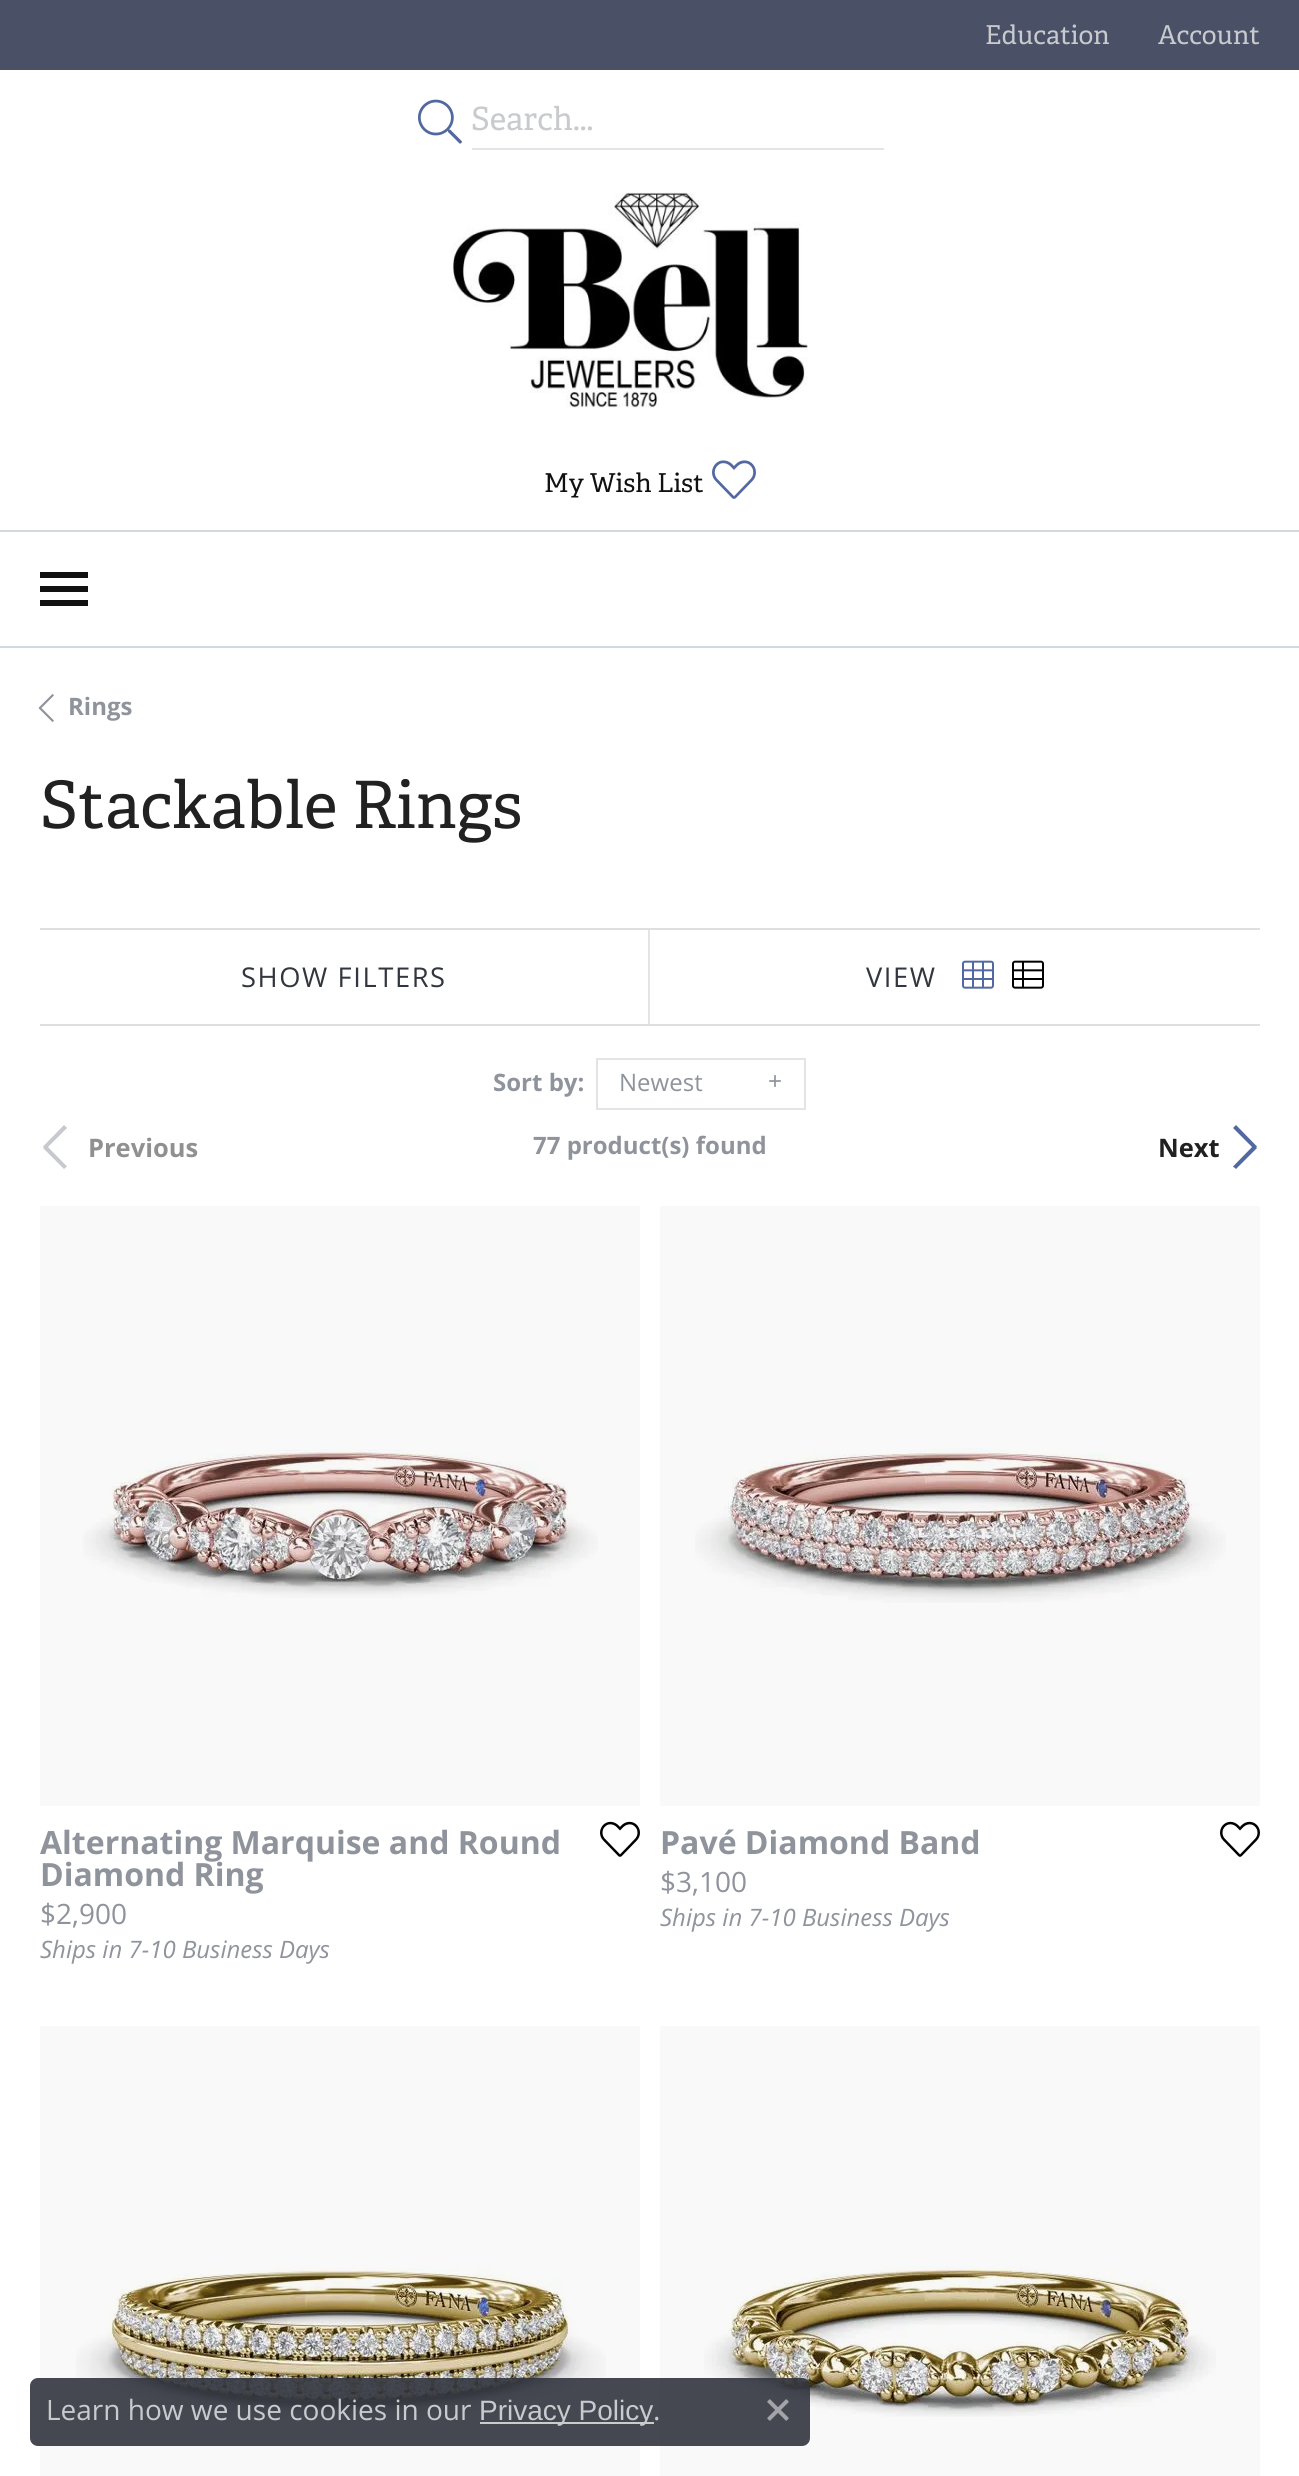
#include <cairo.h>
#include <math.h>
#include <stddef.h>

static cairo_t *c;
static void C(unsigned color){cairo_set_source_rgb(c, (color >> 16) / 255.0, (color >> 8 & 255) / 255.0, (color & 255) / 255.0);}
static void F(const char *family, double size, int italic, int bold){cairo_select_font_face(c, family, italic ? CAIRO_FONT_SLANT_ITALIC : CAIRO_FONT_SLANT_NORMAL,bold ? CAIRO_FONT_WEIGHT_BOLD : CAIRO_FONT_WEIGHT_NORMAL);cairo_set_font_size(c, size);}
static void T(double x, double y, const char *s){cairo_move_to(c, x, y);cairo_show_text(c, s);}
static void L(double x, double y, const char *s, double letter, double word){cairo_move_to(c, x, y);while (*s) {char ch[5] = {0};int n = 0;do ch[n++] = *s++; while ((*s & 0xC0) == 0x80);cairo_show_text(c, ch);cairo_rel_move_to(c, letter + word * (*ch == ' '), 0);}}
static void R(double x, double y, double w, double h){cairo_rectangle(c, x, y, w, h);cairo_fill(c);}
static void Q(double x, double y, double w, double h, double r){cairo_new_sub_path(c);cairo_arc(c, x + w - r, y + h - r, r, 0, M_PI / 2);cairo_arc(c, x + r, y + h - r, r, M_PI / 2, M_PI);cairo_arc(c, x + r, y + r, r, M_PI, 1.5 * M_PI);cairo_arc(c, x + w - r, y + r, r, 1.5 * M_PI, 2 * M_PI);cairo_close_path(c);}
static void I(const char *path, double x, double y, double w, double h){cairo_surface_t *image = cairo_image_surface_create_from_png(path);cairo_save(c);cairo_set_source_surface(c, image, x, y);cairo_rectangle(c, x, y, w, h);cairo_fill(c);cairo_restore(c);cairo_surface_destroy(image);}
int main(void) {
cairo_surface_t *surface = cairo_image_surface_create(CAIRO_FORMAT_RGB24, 1299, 2476);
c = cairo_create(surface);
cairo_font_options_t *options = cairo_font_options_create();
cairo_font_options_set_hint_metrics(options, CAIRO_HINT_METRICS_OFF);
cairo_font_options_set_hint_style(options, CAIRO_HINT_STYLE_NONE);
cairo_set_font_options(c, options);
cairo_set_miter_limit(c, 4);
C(0x4a5167);
cairo_paint(c);
F("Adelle",26,0,0);
C(0xc8cace);
T(985,44,"Education");
T(1158,44,"Account");
C(0xffffff);
R(0,70,1299,460);
I("1.png",418,99,44,45);
C(0xe3e4e6);
R(472,148,412,2);
F("Adelle",32,0,0);
C(0xc8cace);
T(471,130,"Search...");
I("2.png",451,192,357,216);
F("Adelle",26,0,0);
C(0x111111);
T(544,492,"My Wish List");
I("3.png",712,460,44,39);
C(0xffffff);
R(0,532,1299,114);
C(0xd3d7e1);
R(0,530,1299,2);
R(0,646,1299,2);
C(0x111111);
R(40,572,48,6);
R(40,586,48,6);
R(40,600,48,6);
C(0xffffff);
R(0,648,1299,1828);
I("4.png",38,694,16,28);
F("Open Sans",24,0,1);
C(0x8f939c);
T(68,715,"Rings");
F("Adelle",65.25,0,0);
C(0x212121);
T(40,828,"Stackable Rings");
C(0xf9f9f9);
R(660,2026,600,450);
R(40,2026,600,450);
R(660,1206,600,600);
R(40,1206,600,600);
C(0xdedfe1);
R(40,928,1220,2);
C(0xe3e4e6);
R(648,930,2,94);
F("Open Sans",27.25,0,0);
C(0x32363f);
L(241,987,"SHOW FILTERS",1.6,0);
L(866,987,"VIEW",1.6,0);
I("5.png",962,960,32,29);
I("6.png",1012,960,32,29);
C(0xdedfe1);
R(40,1024,1220,2);
F("Open Sans",24,0,1);
C(0x8f939c);
T(493,1091,"Sort by:");
cairo_rectangle(c,597,1059,208,50);
C(0xe3e4e6);
cairo_stroke(c);
F("Open Sans",24,0,0);
C(0x8f939c);
T(619,1091,"Newest");
F("Liberation Sans",24,0,0);
T(768,1089,"+");
F("Open Sans",24,0,1);
T(533,1154,"77 product(s) found");
C(0xc7c9ce);
cairo_new_path(c);
cairo_move_to(c,43,1146.5);
cairo_line_to(c,64,1125);
cairo_line_to(c,67,1128);
cairo_line_to(c,46,1149);
cairo_close_path(c);
cairo_fill(c);
F("Open Sans",25.5,0,1);
C(0x909090);
T(88,1157,"Previous");
C(0xc7c9ce);
cairo_new_path(c);
cairo_move_to(c,46,1145);
cairo_line_to(c,67,1166.5);
cairo_line_to(c,64,1169);
cairo_line_to(c,43,1148);
cairo_close_path(c);
cairo_fill(c);
C(0x212121);
T(1158,1157,"Next");
C(0x5268a0);
cairo_new_path(c);
cairo_move_to(c,1236,1125);
cairo_line_to(c,1257,1146.5);
cairo_line_to(c,1254,1149);
cairo_line_to(c,1233,1128);
cairo_close_path(c);
cairo_fill(c);
cairo_new_path(c);
cairo_move_to(c,1233,1166.5);
cairo_line_to(c,1254,1145);
cairo_line_to(c,1257,1148);
cairo_line_to(c,1236,1169);
cairo_close_path(c);
cairo_fill(c);
I("7.png",83,1449,515,149);
F("Open Sans",32,0,1);
C(0x8f939c);
T(40,1854,"Alternating Marquise and Round");
T(40,1886,"Diamond Ring");
I("8.png",600,1821,40,36);
F("Open Sans",28,0,0);
T(40,1924,"$2,900");
F("Open Sans",24,1,0);
T(40,1958,"Ships in 7-10 Business Days");
I("9.png",695,1448,531,155);
F("Open Sans",32,0,1);
T(660,1854,"Pavé Diamond Band");
I("8.png",1220,1821,40,36);
F("Open Sans",28,0,0);
T(660,1892,"$3,100");
F("Open Sans",24,1,0);
T(660,1926,"Ships in 7-10 Business Days");
I("10.png",76,2267,530,156);
I("11.png",704,2266,512,151);
cairo_set_source_rgba(c,0.196,0.212,0.247,0.9);
Q(30,2378,780,68,8);
cairo_fill(c);
F("Open Sans",28,0,0);
C(0xc8cace);
T(46,2420,"Learn how we use cookies in our");
C(0xcccccc);
R(480,2422,174,2);
F("Liberation Sans",28,0,0);
C(0xc8cace);
T(479,2420,"Privacy Policy");
F("Open Sans",28,0,0);
T(653,2420,".");
I("12.png",767,2399,22,22);
cairo_surface_write_to_png(surface, "o.png");
cairo_font_options_destroy(options);
cairo_destroy(c);
cairo_surface_destroy(surface);
return 0;
}
